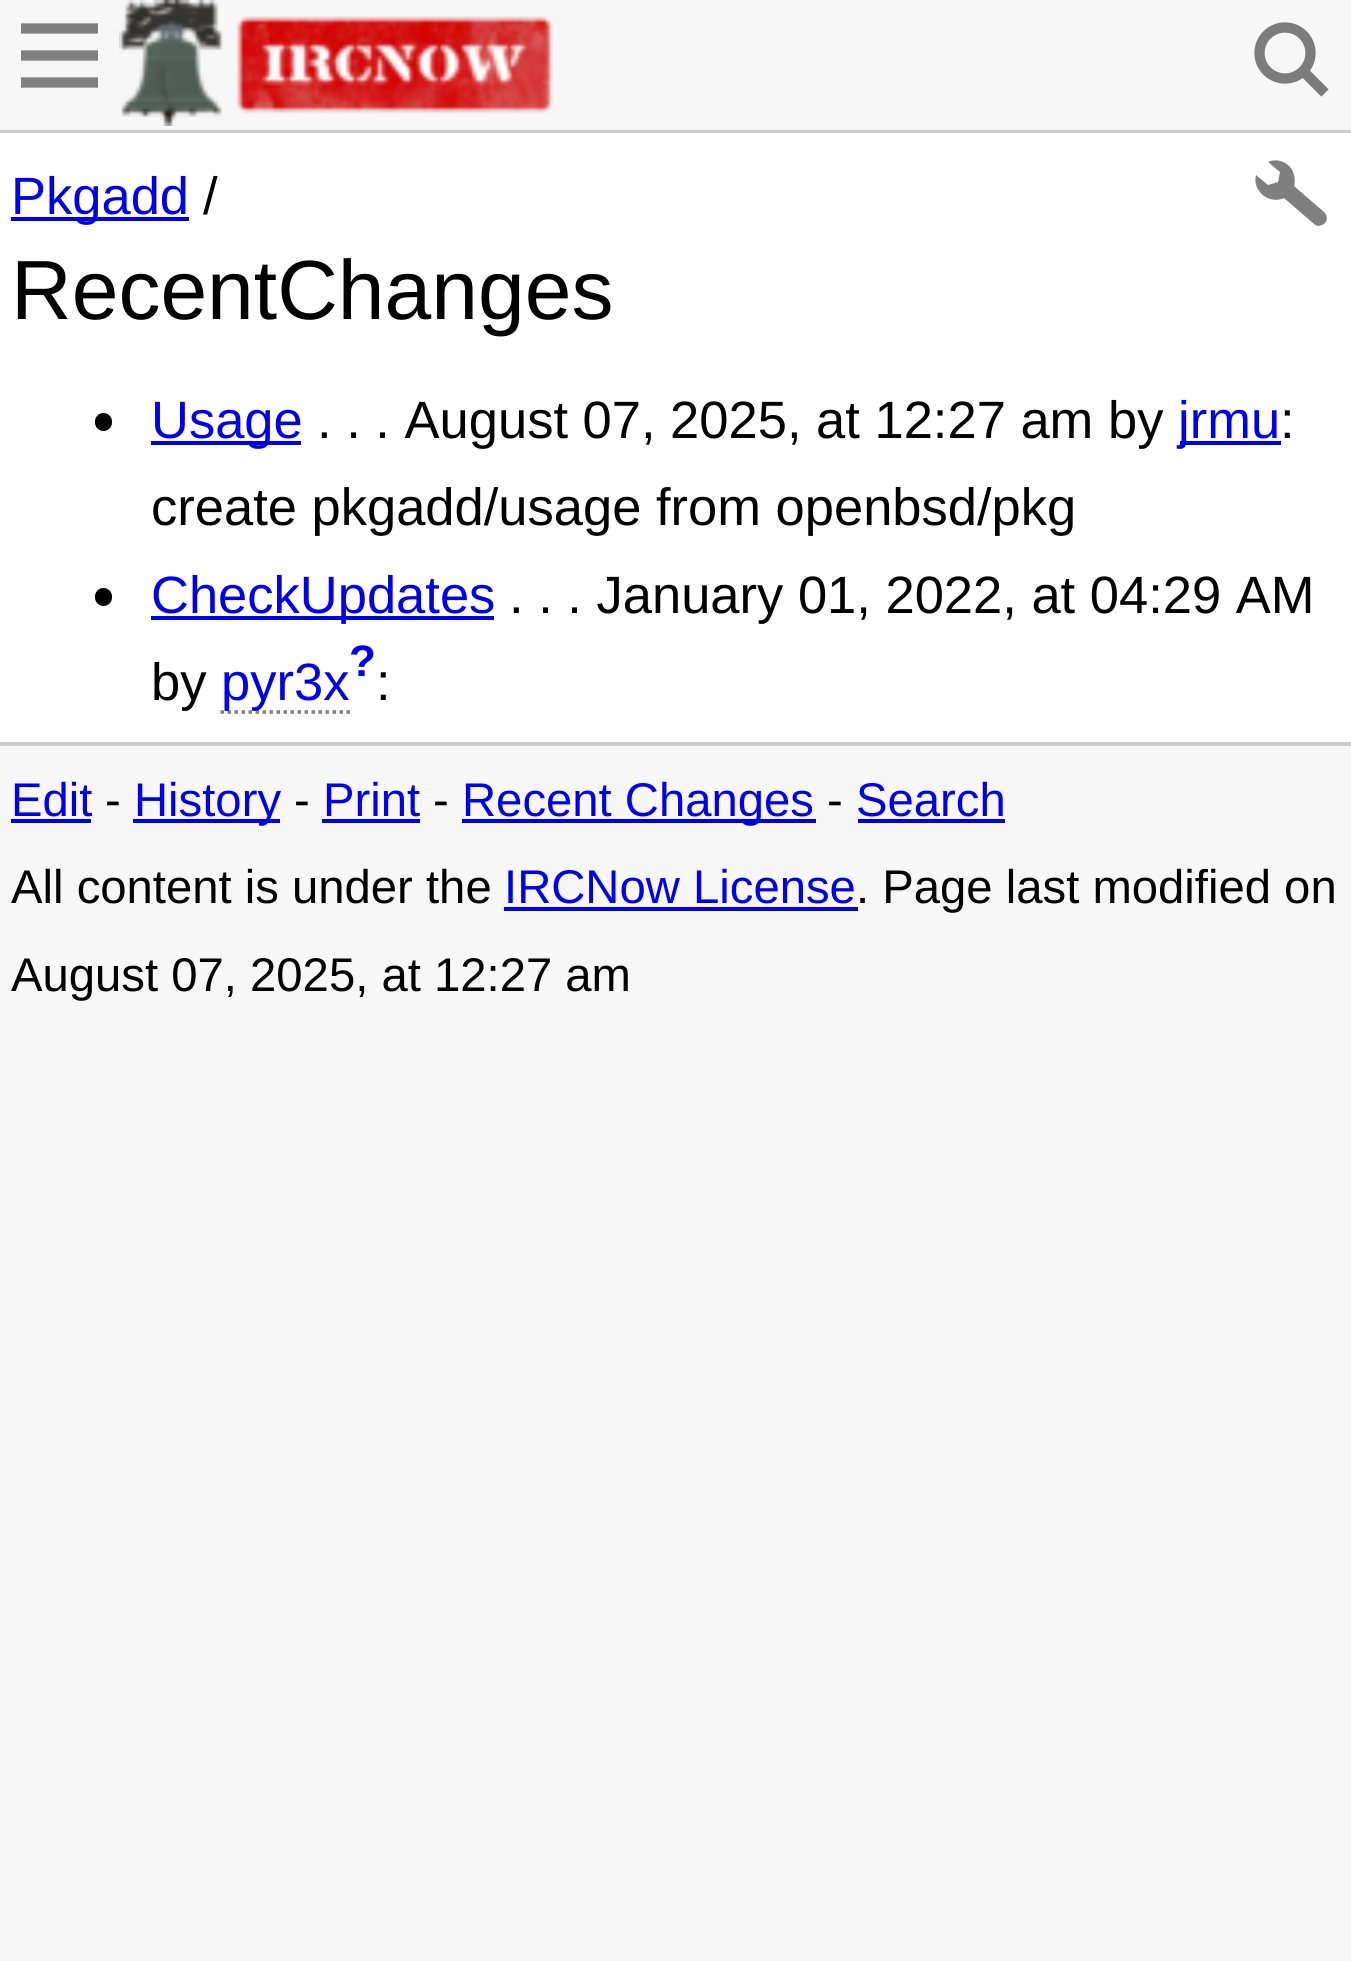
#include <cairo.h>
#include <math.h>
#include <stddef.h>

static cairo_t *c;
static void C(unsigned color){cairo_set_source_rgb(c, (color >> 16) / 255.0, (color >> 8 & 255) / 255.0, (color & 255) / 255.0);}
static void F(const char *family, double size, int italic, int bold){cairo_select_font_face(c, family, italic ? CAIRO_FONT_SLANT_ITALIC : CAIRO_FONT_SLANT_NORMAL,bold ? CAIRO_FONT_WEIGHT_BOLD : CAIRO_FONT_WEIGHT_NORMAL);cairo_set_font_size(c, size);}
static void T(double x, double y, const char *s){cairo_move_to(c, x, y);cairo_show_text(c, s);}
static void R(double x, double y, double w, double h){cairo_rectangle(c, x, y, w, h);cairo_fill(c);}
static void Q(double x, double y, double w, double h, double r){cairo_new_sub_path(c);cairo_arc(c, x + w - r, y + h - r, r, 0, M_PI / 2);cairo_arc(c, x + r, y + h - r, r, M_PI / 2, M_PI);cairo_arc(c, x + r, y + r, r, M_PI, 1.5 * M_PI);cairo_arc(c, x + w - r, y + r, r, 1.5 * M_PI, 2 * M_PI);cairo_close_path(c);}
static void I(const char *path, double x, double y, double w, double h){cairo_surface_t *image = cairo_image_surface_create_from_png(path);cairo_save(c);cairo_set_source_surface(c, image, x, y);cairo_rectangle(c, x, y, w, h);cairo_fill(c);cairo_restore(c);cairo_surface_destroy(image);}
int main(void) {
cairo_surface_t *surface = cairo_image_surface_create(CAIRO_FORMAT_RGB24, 1351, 1961);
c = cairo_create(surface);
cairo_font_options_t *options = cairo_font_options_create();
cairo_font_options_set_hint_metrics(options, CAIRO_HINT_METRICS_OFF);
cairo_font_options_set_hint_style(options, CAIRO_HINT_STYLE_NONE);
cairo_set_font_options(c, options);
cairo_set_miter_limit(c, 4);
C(0xf7f7f7);
cairo_paint(c);
C(0xcccccc);
R(0,130,1351,3);
I("1.png",119,0,434,126);
cairo_new_path(c);
cairo_move_to(c,21,28.5);
cairo_line_to(c,98,28.5);
cairo_move_to(c,21,55.5);
cairo_line_to(c,98,55.5);
cairo_move_to(c,21,82.5);
cairo_line_to(c,98,82.5);
C(0x7f7f7f);
cairo_set_line_width(c,10.3);
cairo_stroke(c);
cairo_arc(c,1285,53,25.5,0,2 * M_PI);
C(0x7c7c7c);
cairo_stroke(c);
cairo_new_path(c);
cairo_move_to(c,1325,93);
cairo_line_to(c,1304.5,72.5);
cairo_stroke(c);
C(0xffffff);
R(0,133,1351,609);
C(0x0000ee);
R(11,217,178,4);
F("Liberation Sans",52.5,0,0);
T(11,214,"Pkgadd");
C(0x000000);
T(203,214,"/");
F("Liberation Sans",84,0,0);
T(11,319,"RecentChanges");
C(0x7f7f7f);
cairo_new_path(c);
cairo_move_to(c,1288,165);
cairo_curve_to(c,1282,160,1274,159,1268,162);
cairo_line_to(c,1280,172);
cairo_line_to(c,1278,182);
cairo_line_to(c,1268,185);
cairo_line_to(c,1256,175);
cairo_curve_to(c,1252,191,1269,205,1284,198);
cairo_line_to(c,1314,224);
cairo_curve_to(c,1317,227,1322,226,1325,223);
cairo_curve_to(c,1328,220,1327,215,1324,212);
cairo_line_to(c,1294,186);
cairo_curve_to(c,1296,179,1294,170,1288,165);
cairo_close_path(c);
cairo_fill(c);
C(0x000000);
Q(95,413,17,18,8.5);
cairo_fill(c);
C(0x0000ee);
R(151,441,150,4);
F("Liberation Sans",52.5,0,0);
T(151,438,"Usage");
C(0x000000);
T(317,438,". . . August 07, 2025, at 12:27 am by");
C(0x0000ee);
R(1180,441,101,4);
T(1178,438,"jrmu");
C(0x000000);
T(1280,438,":");
T(151,525,"create pkgadd/usage from openbsd/pkg");
Q(95,588,17,18,8.5);
cairo_fill(c);
C(0x0000ee);
R(151,616,343,4);
T(151,613,"CheckUpdates");
C(0x000000);
T(509,613,". . . January 01, 2022, at 04:29 AM");
T(151,700,"by");
cairo_new_path(c);
cairo_move_to(c,220.5,712);
cairo_line_to(c,350,712);
C(0x808080);
cairo_set_line_width(c,3.5);
cairo_set_dash(c,(double[]){3.5,3.5},2,0);
cairo_stroke(c);
C(0x0000ee);
T(221,700,"pyr3x");
F("Liberation Sans",44,0,1);
T(349,676,"?");
F("Liberation Sans",52.5,0,0);
C(0x000000);
T(376,700,":");
C(0xcccccc);
R(0,742,1351,4);
F("Liberation Sans",47.25,0,0);
C(0x0000ee);
T(11,816,"Edit");
R(11,819,80,4);
C(0x000000);
T(105,816,"-");
C(0x0000ee);
R(133,819,147,4);
T(134,816,"History");
C(0x000000);
T(294,816,"-");
C(0x0000ee);
T(323,816,"Print");
R(322,819,98,4);
C(0x000000);
T(433,816,"-");
C(0x0000ee);
R(462,819,354,4);
T(462,816,"Recent Changes");
C(0x000000);
T(827,816,"-");
C(0x0000ee);
T(856,816,"Search");
R(858,819,147,4);
C(0x000000);
T(11,903,"All content is under the");
C(0x0000ee);
T(504,903,"IRCNow License");
R(504,907,354,4);
C(0x000000);
T(856,903,". Page last modified on");
T(11,991,"August 07, 2025, at 12:27 am");
cairo_surface_write_to_png(surface, "o.png");
cairo_font_options_destroy(options);
cairo_destroy(c);
cairo_surface_destroy(surface);
return 0;
}
